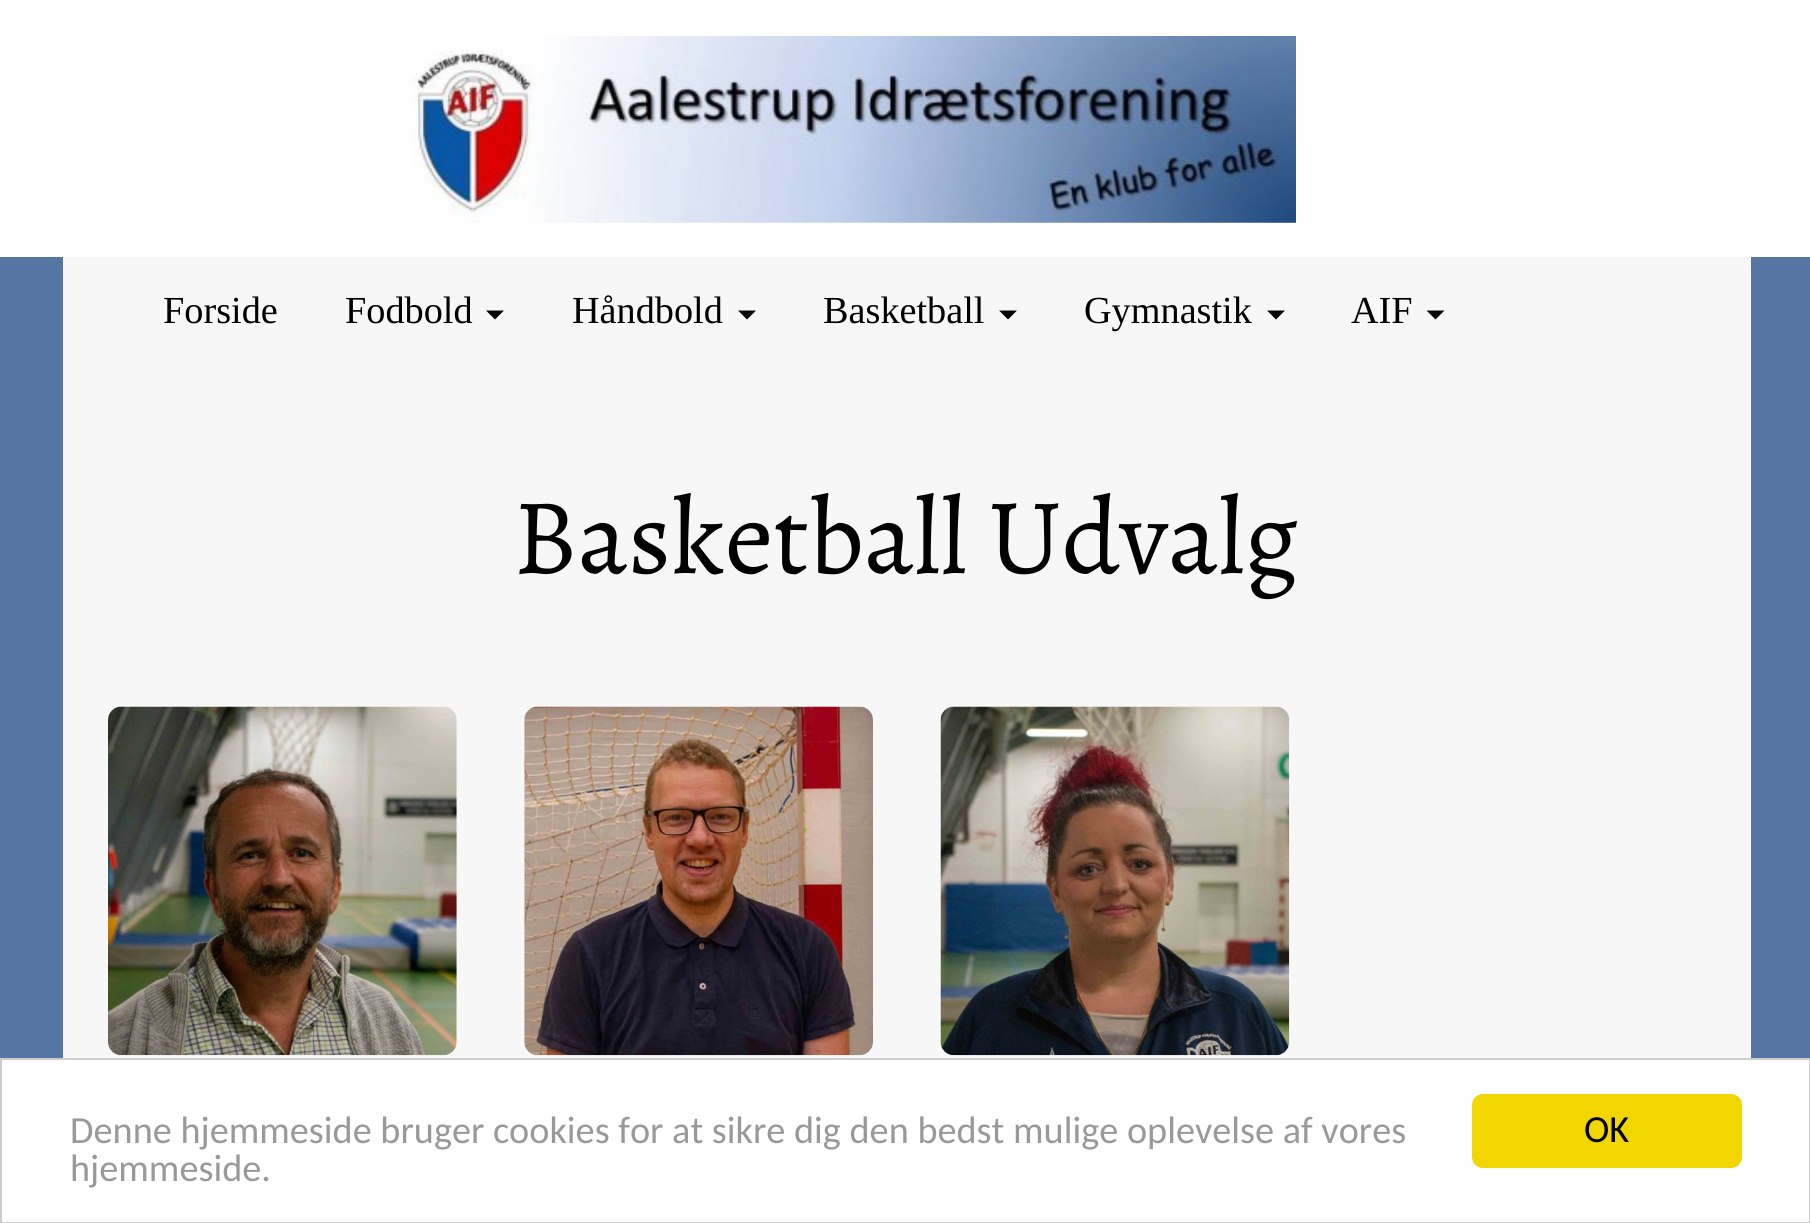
#include <cairo.h>
#include <math.h>
#include <stddef.h>

static cairo_t *c;
static void C(unsigned color){cairo_set_source_rgb(c, (color >> 16) / 255.0, (color >> 8 & 255) / 255.0, (color & 255) / 255.0);}
static void F(const char *family, double size, int italic, int bold){cairo_select_font_face(c, family, italic ? CAIRO_FONT_SLANT_ITALIC : CAIRO_FONT_SLANT_NORMAL,bold ? CAIRO_FONT_WEIGHT_BOLD : CAIRO_FONT_WEIGHT_NORMAL);cairo_set_font_size(c, size);}
static void T(double x, double y, const char *s){cairo_move_to(c, x, y);cairo_show_text(c, s);}
static void R(double x, double y, double w, double h){cairo_rectangle(c, x, y, w, h);cairo_fill(c);}
static void Q(double x, double y, double w, double h, double r){cairo_new_sub_path(c);cairo_arc(c, x + w - r, y + h - r, r, 0, M_PI / 2);cairo_arc(c, x + r, y + h - r, r, M_PI / 2, M_PI);cairo_arc(c, x + r, y + r, r, M_PI, 1.5 * M_PI);cairo_arc(c, x + w - r, y + r, r, 1.5 * M_PI, 2 * M_PI);cairo_close_path(c);}
static void I(const char *path, double x, double y, double w, double h){cairo_surface_t *image = cairo_image_surface_create_from_png(path);cairo_save(c);cairo_set_source_surface(c, image, x, y);cairo_rectangle(c, x, y, w, h);cairo_fill(c);cairo_restore(c);cairo_surface_destroy(image);}
int main(void) {
cairo_surface_t *surface = cairo_image_surface_create(CAIRO_FORMAT_RGB24, 1810, 1223);
c = cairo_create(surface);
cairo_font_options_t *options = cairo_font_options_create();
cairo_font_options_set_hint_metrics(options, CAIRO_HINT_METRICS_OFF);
cairo_font_options_set_hint_style(options, CAIRO_HINT_STYLE_NONE);
cairo_set_font_options(c, options);
cairo_set_miter_limit(c, 4);
C(0x5576a3);
cairo_paint(c);
C(0xffffff);
R(0,0,1810,257);
I("1.png",411,36,885,187);
C(0xf7f7f7);
R(63,257,1688,801);
F("Liberation Serif",38.25,0,0);
C(0x000000);
T(163,323,"Forside");
T(345,323,"Fodbold");
cairo_new_path(c);
cairo_move_to(c,486,310.5);
cairo_line_to(c,504,310.5);
cairo_line_to(c,495,319.5);
cairo_close_path(c);
cairo_fill(c);
T(572,323,"Håndbold");
cairo_new_path(c);
cairo_move_to(c,738,310.5);
cairo_line_to(c,756,310.5);
cairo_line_to(c,747,319.5);
cairo_close_path(c);
cairo_fill(c);
T(823,323,"Basketball");
cairo_new_path(c);
cairo_move_to(c,999,310.5);
cairo_line_to(c,1017,310.5);
cairo_line_to(c,1008,319.5);
cairo_close_path(c);
cairo_fill(c);
T(1084,323,"Gymnastik");
cairo_new_path(c);
cairo_move_to(c,1267,310.5);
cairo_line_to(c,1285,310.5);
cairo_line_to(c,1276,319.5);
cairo_close_path(c);
cairo_fill(c);
T(1351,323,"AIF");
cairo_new_path(c);
cairo_move_to(c,1426.5,310.5);
cairo_line_to(c,1444.5,310.5);
cairo_line_to(c,1435.5,319.5);
cairo_close_path(c);
cairo_fill(c);
F("Alegreya",108,0,0);
T(513,573,"Basketball Udvalg");
I("2.png",108,706,349,350);
I("3.png",524,706,349,350);
I("4.png",940,706,350,350);
C(0xffffff);
cairo_rectangle(c,1,1059,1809,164);
cairo_fill_preserve(c);
C(0xcccccc);
cairo_stroke(c);
F("Carlito",38.25,0,0);
C(0x999999);
T(70,1143,"Denne hjemmeside bruger cookies for at sikre dig den bedst mulige oplevelse af vores");
T(70,1181,"hjemmeside.");
C(0xf1d600);
Q(1472,1094,270,74,11);
cairo_fill(c);
C(0x000000);
T(1584,1142,"OK");
cairo_surface_write_to_png(surface, "o.png");
cairo_font_options_destroy(options);
cairo_destroy(c);
cairo_surface_destroy(surface);
return 0;
}
